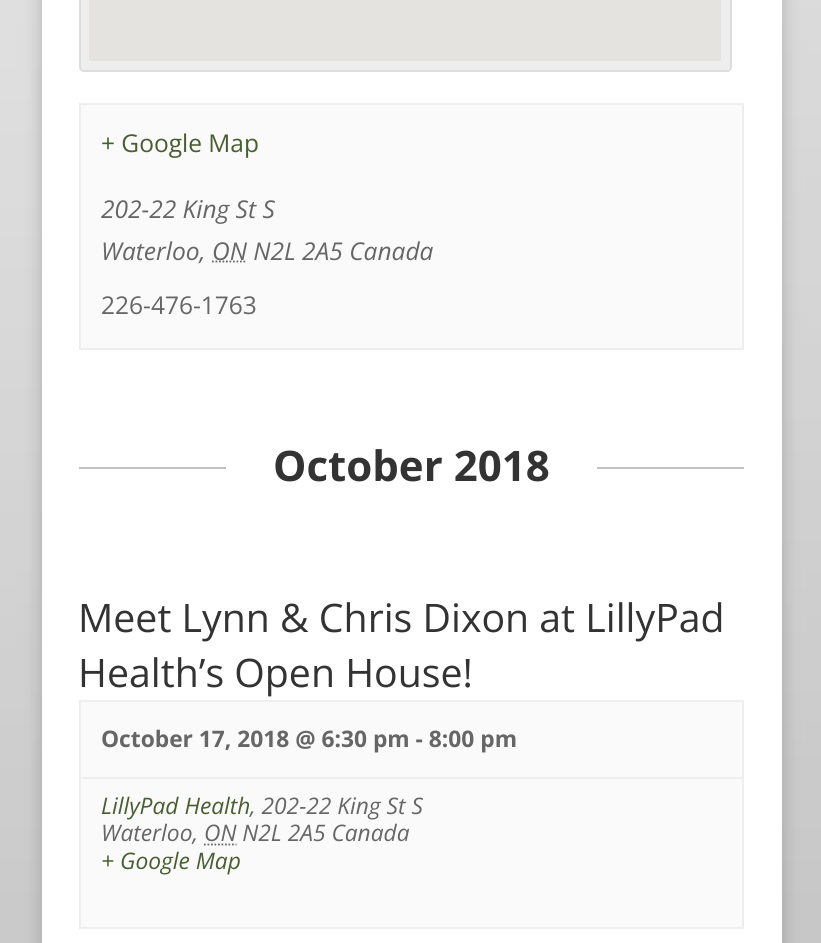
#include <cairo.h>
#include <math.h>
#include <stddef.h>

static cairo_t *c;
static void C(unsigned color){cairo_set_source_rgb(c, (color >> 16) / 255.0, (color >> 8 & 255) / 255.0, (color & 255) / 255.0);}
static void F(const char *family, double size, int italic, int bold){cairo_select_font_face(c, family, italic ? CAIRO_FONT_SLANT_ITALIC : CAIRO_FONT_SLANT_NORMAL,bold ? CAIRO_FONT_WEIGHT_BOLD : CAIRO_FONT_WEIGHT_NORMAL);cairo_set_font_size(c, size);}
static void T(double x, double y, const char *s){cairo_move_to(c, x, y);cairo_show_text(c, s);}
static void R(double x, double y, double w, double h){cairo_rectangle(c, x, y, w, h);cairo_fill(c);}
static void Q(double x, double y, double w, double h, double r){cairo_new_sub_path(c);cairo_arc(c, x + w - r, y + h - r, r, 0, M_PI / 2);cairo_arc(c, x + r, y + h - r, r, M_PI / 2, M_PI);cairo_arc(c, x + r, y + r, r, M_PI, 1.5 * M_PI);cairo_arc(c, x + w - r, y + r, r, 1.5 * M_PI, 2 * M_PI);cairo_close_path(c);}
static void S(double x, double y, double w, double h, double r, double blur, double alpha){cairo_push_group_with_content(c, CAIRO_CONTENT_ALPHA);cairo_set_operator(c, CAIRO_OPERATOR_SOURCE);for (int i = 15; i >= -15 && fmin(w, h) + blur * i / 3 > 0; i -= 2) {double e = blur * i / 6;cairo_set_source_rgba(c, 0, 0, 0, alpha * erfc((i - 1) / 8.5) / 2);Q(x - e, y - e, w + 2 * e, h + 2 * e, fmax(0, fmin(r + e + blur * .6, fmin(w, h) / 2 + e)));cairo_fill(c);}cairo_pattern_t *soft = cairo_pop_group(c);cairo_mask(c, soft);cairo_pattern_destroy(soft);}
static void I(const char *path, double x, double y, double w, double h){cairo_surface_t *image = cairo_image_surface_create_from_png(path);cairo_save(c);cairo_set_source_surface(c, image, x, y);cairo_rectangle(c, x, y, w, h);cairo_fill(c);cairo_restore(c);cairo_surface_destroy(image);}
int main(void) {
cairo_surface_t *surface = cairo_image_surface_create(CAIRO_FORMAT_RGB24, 821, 943);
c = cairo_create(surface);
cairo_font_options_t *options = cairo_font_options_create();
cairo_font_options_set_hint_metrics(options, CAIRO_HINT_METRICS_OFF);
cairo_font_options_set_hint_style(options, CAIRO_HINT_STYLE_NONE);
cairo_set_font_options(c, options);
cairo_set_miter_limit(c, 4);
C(0xffffff);
cairo_paint(c);
I("1.png",0,0,821,943);
C(0x000000);
S(42,-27,740,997,0,9,.2);
C(0xffffff);
R(42,0,740,943);
C(0xeeeeee);
Q(80,-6,651,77,4);
cairo_fill_preserve(c);
C(0xdddddd);
cairo_stroke(c);
C(0xe5e3df);
R(89,0,632,61);
C(0xfafafa);
cairo_rectangle(c,80,104,663,245);
cairo_fill_preserve(c);
C(0xeeeeee);
cairo_stroke(c);
F("Open Sans",24.5,0,0);
C(0x495e30);
T(101,152,"+ Google Map");
F("Open Sans",24.5,1,0);
C(0x666666);
T(101,218,"202-22 King St S");
T(101,260,"Waterloo,");
cairo_new_path(c);
cairo_move_to(c,212,261.5);
cairo_line_to(c,247,261.5);
cairo_set_line_width(c,1.8);
cairo_set_dash(c,(double[]){1.75,1.75},2,0);
cairo_stroke(c);
T(212,260,"ON N2L 2A5 Canada");
F("Open Sans",24.5,0,0);
T(101,314,"226-476-1763");
C(0xc2c2c2);
R(79,467,665,2);
C(0xffffff);
R(226,467,371,2);
F("Open Sans",42,0,1);
C(0x333333);
T(273,481,"October 2018");
F("Open Sans",39.25,0,0);
T(78,632,"Meet Lynn & Chris Dixon at LillyPad");
T(78,687,"Health’s Open House!");
C(0xfafafa);
cairo_rectangle(c,80,701,663,227);
cairo_fill_preserve(c);
C(0xeeeeee);
cairo_set_line_width(c,2);
cairo_set_dash(c,NULL,0,0);
cairo_stroke(c);
F("Open Sans",22.75,0,1);
C(0x666666);
T(101,747,"October 17, 2018 @ 6:30 pm - 8:00 pm");
C(0xeeeeee);
R(81,777,661,2);
F("Open Sans",22.75,1,0);
C(0x495e30);
T(101,814,"LillyPad Health");
C(0x666666);
T(250,814,", 202-22 King St S");
T(101,841,"Waterloo, ON N2L 2A5 Canada");
cairo_new_path(c);
cairo_move_to(c,204,844.5);
cairo_line_to(c,236.5,844.5);
cairo_set_line_width(c,1.8);
cairo_set_dash(c,(double[]){1.75,1.75},2,0);
cairo_stroke(c);
C(0x495e30);
T(101,869,"+ Google Map");
cairo_surface_write_to_png(surface, "o.png");
cairo_font_options_destroy(options);
cairo_destroy(c);
cairo_surface_destroy(surface);
return 0;
}
